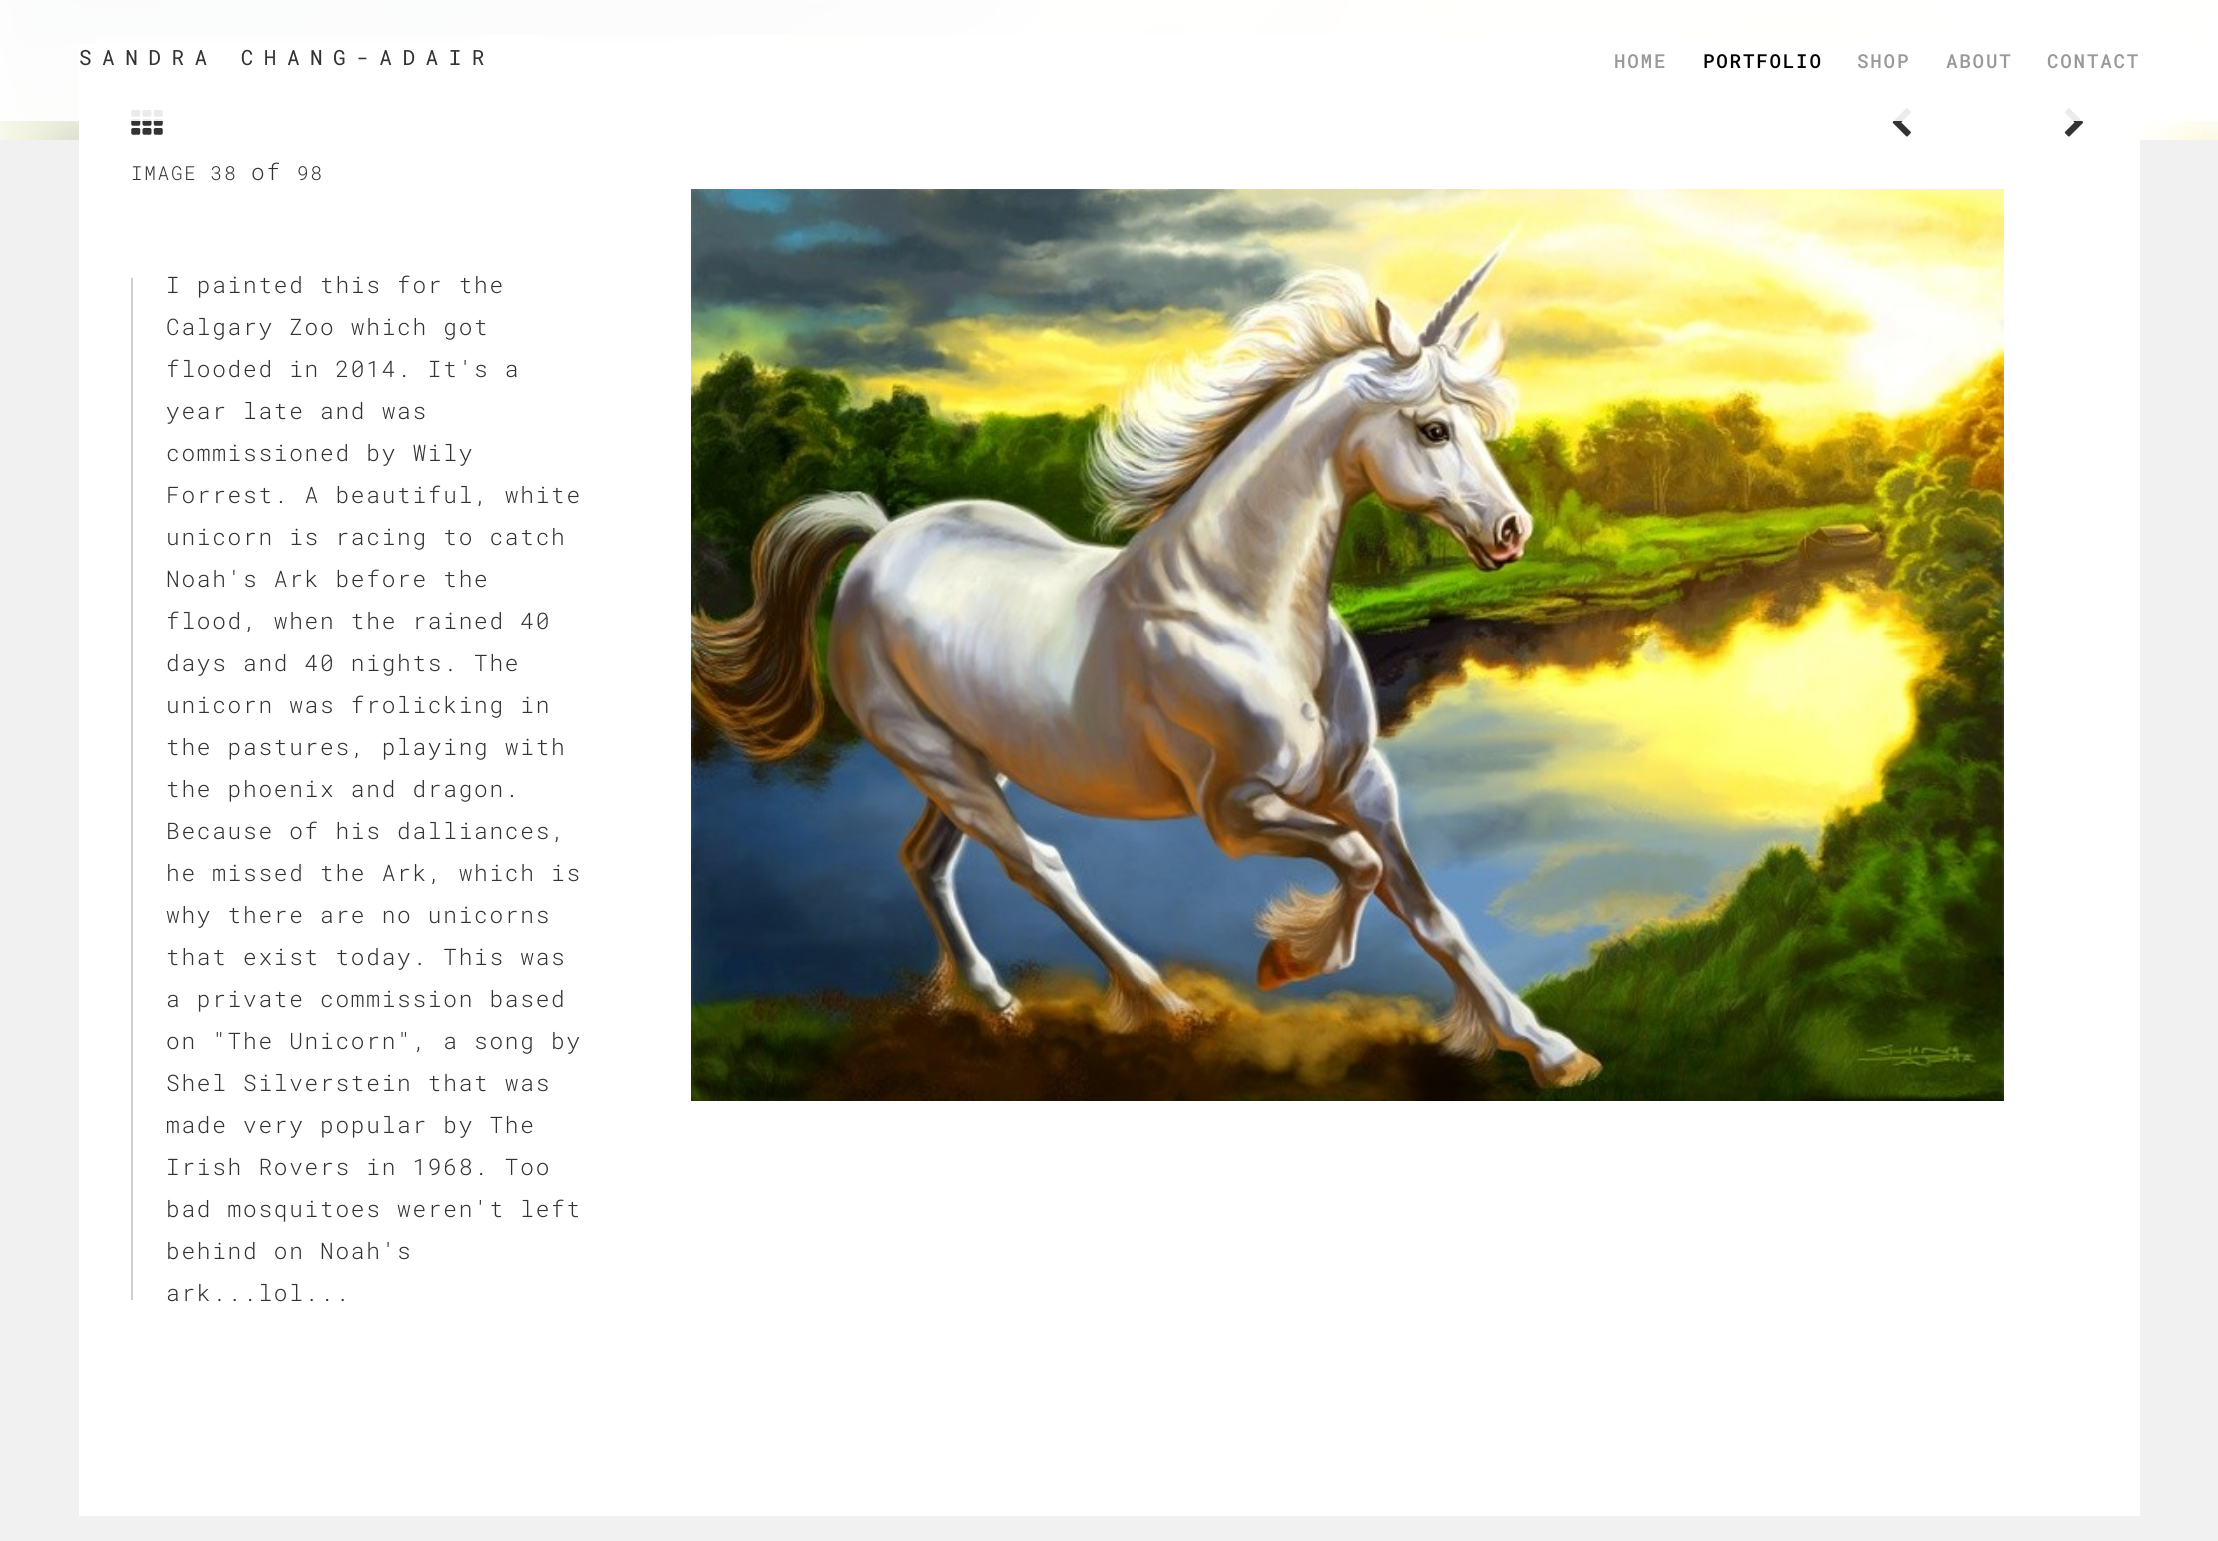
#include <cairo.h>
#include <math.h>
#include <stddef.h>

static cairo_t *c;
static void C(unsigned color){cairo_set_source_rgb(c, (color >> 16) / 255.0, (color >> 8 & 255) / 255.0, (color & 255) / 255.0);}
static void F(const char *family, double size, int italic, int bold){cairo_select_font_face(c, family, italic ? CAIRO_FONT_SLANT_ITALIC : CAIRO_FONT_SLANT_NORMAL,bold ? CAIRO_FONT_WEIGHT_BOLD : CAIRO_FONT_WEIGHT_NORMAL);cairo_set_font_size(c, size);}
static void L(double x, double y, const char *s, double letter, double word){cairo_move_to(c, x, y);while (*s) {char ch[5] = {0};int n = 0;do ch[n++] = *s++; while ((*s & 0xC0) == 0x80);cairo_show_text(c, ch);cairo_rel_move_to(c, letter + word * (*ch == ' '), 0);}}
static void R(double x, double y, double w, double h){cairo_rectangle(c, x, y, w, h);cairo_fill(c);}
static void I(const char *path, double x, double y, double w, double h){cairo_surface_t *image = cairo_image_surface_create_from_png(path);cairo_save(c);cairo_set_source_surface(c, image, x, y);cairo_rectangle(c, x, y, w, h);cairo_fill(c);cairo_restore(c);cairo_surface_destroy(image);}
int main(void) {
cairo_surface_t *surface = cairo_image_surface_create(CAIRO_FORMAT_RGB24, 2218, 1541);
c = cairo_create(surface);
cairo_font_options_t *options = cairo_font_options_create();
cairo_font_options_set_hint_metrics(options, CAIRO_HINT_METRICS_OFF);
cairo_font_options_set_hint_style(options, CAIRO_HINT_STYLE_NONE);
cairo_set_font_options(c, options);
cairo_set_miter_limit(c, 4);
C(0xf1f1f1);
cairo_paint(c);
C(0xfcfcfc);
R(0,0,2218,140);
I("1.png",0,0,2218,140);
C(0xffffff);
R(79,44,2061,1472);
cairo_set_source_rgba(c,1,1,1,0.8);
R(96,35,1907,9);
I("2.png",131,110,32,25);
I("3.png",1892,108,19,29);
I("4.png",2064,108,19,29);
cairo_set_source_rgba(c,1,1,1,0.9);
R(0,0,2218,121);
F("Roboto Mono",21,0,0);
C(0x333333);
L(79,65,"SANDRA CHANG-ADAIR",10.5,0);
F("Roboto Mono Medium",19.25,0,0);
C(0x999999);
L(1614,68,"HOME",1.75,0);
C(0x000000);
L(1703,68,"PORTFOLIO",1.75,0);
C(0x999999);
L(1857,68,"SHOP",1.75,0);
L(1946,68,"ABOUT",1.75,0);
L(2047,68,"CONTACT",1.75,0);
F("Roboto Mono Light",19.25,0,0);
C(0x333333);
L(131,180,"IMAGE 38",1.75,0);
F("Roboto Mono Light",22.75,0,0);
L(251,180,"of",1.75,0);
F("Roboto Mono Light",19.25,0,0);
L(297,180,"98",1.75,0);
C(0xcfcfcf);
R(131,278,2,1022);
F("Roboto Mono Light",22.75,0,0);
C(0x333333);
L(166,293,"I painted this for the",1.75,0);
L(166,335,"Calgary Zoo which got",1.75,0);
L(166,377,"flooded in 2014. It's a",1.75,0);
L(166,419,"year late and was",1.75,0);
L(166,461,"commissioned by Wily",1.75,0);
L(166,503,"Forrest. A beautiful, white",1.75,0);
L(166,545,"unicorn is racing to catch",1.75,0);
L(166,587,"Noah's Ark before the",1.75,0);
L(166,629,"flood, when the rained 40",1.75,0);
L(166,671,"days and 40 nights. The",1.75,0);
L(166,713,"unicorn was frolicking in",1.75,0);
L(166,755,"the pastures, playing with",1.75,0);
L(166,797,"the phoenix and dragon.",1.75,0);
L(166,839,"Because of his dalliances,",1.75,0);
L(166,881,"he missed the Ark, which is",1.75,0);
L(166,923,"why there are no unicorns",1.75,0);
L(166,965,"that exist today. This was",1.75,0);
L(166,1007,"a private commission based",1.75,0);
L(166,1049,"on \"The Unicorn\", a song by",1.75,0);
L(166,1091,"Shel Silverstein that was",1.75,0);
L(166,1133,"made very popular by The",1.75,0);
L(166,1175,"Irish Rovers in 1968. Too",1.75,0);
L(166,1217,"bad mosquitoes weren't left",1.75,0);
L(166,1259,"behind on Noah's",1.75,0);
L(166,1301,"ark...lol...",1.75,0);
I("5.png",691,189,1313,912);
cairo_surface_write_to_png(surface, "o.png");
cairo_font_options_destroy(options);
cairo_destroy(c);
cairo_surface_destroy(surface);
return 0;
}
